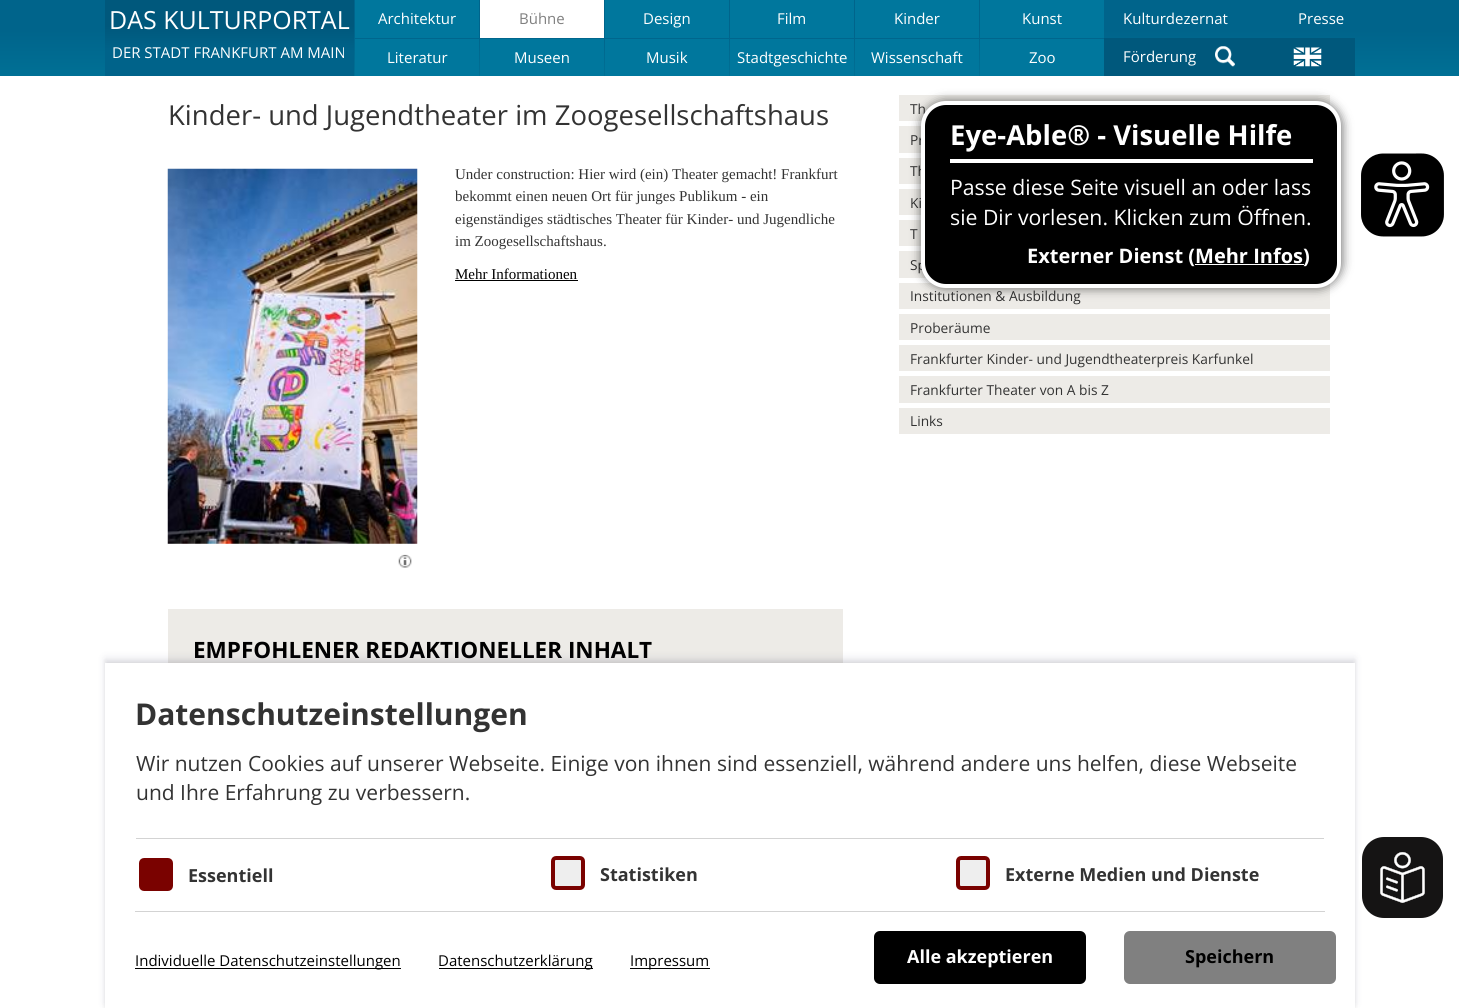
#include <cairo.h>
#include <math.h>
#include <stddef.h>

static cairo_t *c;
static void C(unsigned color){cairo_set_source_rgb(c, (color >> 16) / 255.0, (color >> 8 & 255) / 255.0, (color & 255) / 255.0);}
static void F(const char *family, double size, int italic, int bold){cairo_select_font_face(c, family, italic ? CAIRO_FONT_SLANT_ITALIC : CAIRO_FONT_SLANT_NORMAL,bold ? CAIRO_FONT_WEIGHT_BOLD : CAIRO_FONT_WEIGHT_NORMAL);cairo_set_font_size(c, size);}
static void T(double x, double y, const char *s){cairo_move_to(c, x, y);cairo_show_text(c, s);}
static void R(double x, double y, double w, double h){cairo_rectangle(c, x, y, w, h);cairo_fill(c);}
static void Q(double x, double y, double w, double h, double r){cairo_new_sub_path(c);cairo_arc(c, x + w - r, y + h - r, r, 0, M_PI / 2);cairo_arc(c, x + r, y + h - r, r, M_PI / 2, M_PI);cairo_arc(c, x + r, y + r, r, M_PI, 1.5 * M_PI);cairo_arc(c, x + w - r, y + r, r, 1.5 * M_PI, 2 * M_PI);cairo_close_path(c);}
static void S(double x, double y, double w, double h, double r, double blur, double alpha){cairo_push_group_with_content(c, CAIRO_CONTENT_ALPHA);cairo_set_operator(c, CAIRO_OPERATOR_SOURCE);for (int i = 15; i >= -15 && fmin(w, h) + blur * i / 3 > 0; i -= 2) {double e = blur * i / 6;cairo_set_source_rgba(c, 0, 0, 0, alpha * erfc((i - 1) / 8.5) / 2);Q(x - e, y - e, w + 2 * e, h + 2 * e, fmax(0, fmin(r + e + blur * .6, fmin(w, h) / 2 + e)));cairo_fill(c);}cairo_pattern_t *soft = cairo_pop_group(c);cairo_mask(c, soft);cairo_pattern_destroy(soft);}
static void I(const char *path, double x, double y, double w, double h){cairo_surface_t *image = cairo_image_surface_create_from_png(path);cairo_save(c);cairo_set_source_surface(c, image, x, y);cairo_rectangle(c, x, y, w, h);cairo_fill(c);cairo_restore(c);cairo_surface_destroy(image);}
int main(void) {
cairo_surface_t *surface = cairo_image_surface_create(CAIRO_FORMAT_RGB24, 1459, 1008);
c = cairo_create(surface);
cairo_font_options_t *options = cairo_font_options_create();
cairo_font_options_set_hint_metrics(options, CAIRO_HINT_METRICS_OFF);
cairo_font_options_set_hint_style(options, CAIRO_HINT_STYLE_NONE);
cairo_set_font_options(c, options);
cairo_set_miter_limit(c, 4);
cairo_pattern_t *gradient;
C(0xffffff);
cairo_paint(c);
gradient = cairo_pattern_create_linear(730,76,730,0);
cairo_pattern_add_color_stop_rgba(gradient,0,0,0.439,0.584,1);
cairo_pattern_add_color_stop_rgba(gradient,.6,0,0.392,0.545,1);
cairo_pattern_add_color_stop_rgba(gradient,1,0,0.392,0.545,1);
cairo_set_source(c,gradient);
cairo_pattern_destroy(gradient);
R(0,0,1459,76);
gradient = cairo_pattern_create_linear(229,76,229,0);
cairo_pattern_add_color_stop_rgba(gradient,0,0,0.388,0.541,1);
cairo_pattern_add_color_stop_rgba(gradient,.33,0,0.388,0.541,1);
cairo_pattern_add_color_stop_rgba(gradient,.66,0,0.345,0.486,1);
cairo_pattern_add_color_stop_rgba(gradient,1,0,0.345,0.486,1);
cairo_set_source(c,gradient);
cairo_pattern_destroy(gradient);
R(105,0,249,76);
F("Open Sans",25,0,0);
C(0xffffff);
T(109,29,"DAS KULTURPORTAL");
F("Open Sans",15,0,0);
T(112,58,"DER STADT FRANKFURT AM MAIN");
C(0x00779d);
R(355,0,124,38);
C(0xffffff);
T(378,24,"Architektur");
R(480,0,124,38);
C(0x808080);
T(519,24,"Bühne");
C(0x00779d);
R(605,0,124,38);
C(0xffffff);
T(643,24,"Design");
C(0x00779d);
R(730,0,124,38);
C(0xffffff);
T(777,24,"Film");
C(0x00779d);
R(855,0,124,38);
C(0xffffff);
T(894,24,"Kinder");
C(0x00779d);
R(980,0,124,38);
C(0xffffff);
T(1022,24,"Kunst");
C(0x00779d);
R(355,39,124,37);
C(0xffffff);
T(387,63,"Literatur");
C(0x00779d);
R(480,39,124,37);
C(0xffffff);
T(514,63,"Museen");
C(0x00779d);
R(605,39,124,37);
C(0xffffff);
T(646,63,"Musik");
C(0x00779d);
R(730,39,124,37);
C(0xffffff);
T(737,63,"Stadtgeschichte");
C(0x00779d);
R(855,39,124,37);
C(0xffffff);
T(871,63,"Wissenschaft");
C(0x00779d);
R(980,39,124,37);
C(0xffffff);
T(1029,63,"Zoo");
T(1123,24,"Kulturdezernat");
T(1298,24,"Presse");
C(0x00587c);
R(1104,38,251,38);
C(0xffffff);
T(1123,62,"Förderung");
I("1.png",1215,46,20,21);
I("2.png",1293,47,29,20);
F("Open Sans",27.5,0,0);
C(0x333333);
T(168,125,"Kinder- und Jugendtheater im Zoogesellschaftshaus");
I("3.png",167,168,251,376);
I("4.png",398,554,14,14);
F("Liberation Serif",15,0,0);
T(455,179,"Under construction: Hier wird (ein) Theater gemacht! Frankfurt");
T(455,201,"bekommt einen neuen Ort für junges Publikum - ein");
T(455,224,"eigenständiges städtisches Theater für Kinder- und Jugendliche");
T(455,246,"im Zoogesellschaftshaus.");
C(0x000000);
T(455,279,"Mehr Informationen");
R(455,280,123,1);
C(0xedebe7);
R(168,609,675,54);
F("Open Sans",22.5,0,1);
C(0x000000);
T(193,658,"EMPFOHLENER REDAKTIONELLER INHALT");
C(0xedebe7);
R(899,95,431,26);
F("Open Sans",13.75,0,0);
C(0x333333);
T(910,114,"Th");
C(0xedebe7);
R(899,126,22,27);
C(0x333333);
T(910,145,"Pr");
C(0xedebe7);
R(899,158,22,26);
C(0x333333);
T(910,176,"Th");
C(0xedebe7);
R(899,189,22,26);
C(0x333333);
T(910,208,"Ki");
C(0xedebe7);
R(899,220,22,26);
C(0x333333);
T(910,239,"T");
C(0xedebe7);
R(899,251,27,27);
C(0x333333);
T(910,270,"Sp");
C(0xedebe7);
R(899,283,431,26);
C(0x333333);
T(910,301,"Institutionen & Ausbildung");
C(0xedebe7);
R(899,314,431,26);
C(0x333333);
T(910,333,"Proberäume");
C(0xedebe7);
R(899,345,431,26);
C(0x333333);
T(910,364,"Frankfurter Kinder- und Jugendtheaterpreis Karfunkel");
C(0xedebe7);
R(899,376,431,27);
C(0x333333);
T(910,395,"Frankfurter Theater von A bis Z");
C(0xedebe7);
R(899,408,431,26);
C(0x333333);
T(910,426,"Links");
C(0x000000);
S(920,100,423,189,26,5,.5);
C(0x000000);
Q(923,103,416,183,23);
cairo_fill_preserve(c);
C(0xffffff);
cairo_set_line_width(c,4);
cairo_stroke(c);
R(950,159,363,4);
F("Open Sans",27.5,0,1);
T(950,145,"Eye-Able® - Visuelle Hilfe");
F("Open Sans",21.25,0,0);
T(950,195,"Passe diese Seite visuell an oder lass");
T(950,225,"sie Dir vorlesen. Klicken zum Öffnen.");
F("Open Sans",20,0,1);
T(1027,263,"Externer Dienst (Mehr Infos");
R(1195,264,109,1);
T(1303,263,")");
I("5.png",1361,153,83,84);
C(0x000000);
S(105,661,1250,347,0,2,.08);
C(0x32325d);
S(105,658,1250,346,0,4,.11);
C(0xffffff);
R(105,663,1250,345);
F("Open Sans",30,0,1);
C(0x333333);
T(135,725,"Datenschutzeinstellungen");
C(0xd3d3d3);
R(136,838,1188,1);
F("Open Sans",21,0,0);
C(0x333333);
T(136,771,"Wir nutzen Cookies auf unserer Webseite. Einige von ihnen sind essenziell, während andere uns helfen, diese Webseite");
T(136,800,"und Ihre Erfahrung zu verbessern.");
C(0x7a0200);
Q(141,860,30,29,3);
cairo_fill_preserve(c);
cairo_stroke(c);
F("Open Sans",18,0,1);
C(0x333333);
T(188,882,"Essentiell");
C(0xeeeeee);
Q(553,858,30,30,3);
cairo_fill_preserve(c);
C(0x7a0200);
cairo_stroke(c);
C(0x333333);
T(600,881,"Statistiken");
C(0xeeeeee);
Q(958,858,30,30,3);
cairo_fill_preserve(c);
C(0x7a0200);
cairo_stroke(c);
C(0x333333);
T(1005,881,"Externe Medien und Dienste");
C(0xd3d3d3);
R(135,911,1190,1);
C(0x000000);
R(135,968,266,1);
F("Open Sans",15,0,0);
T(135,966,"Individuelle Datenschutzeinstellungen");
R(439,968,154,1);
T(438,966,"Datenschutzerklärung");
R(630,968,80,1);
T(630,966,"Impressum");
Q(874,931,212,53,6);
cairo_fill(c);
F("Open Sans",18,0,1);
C(0xffffff);
T(907,963,"Alle akzeptieren");
C(0x808080);
Q(1124,931,212,53,6);
cairo_fill(c);
C(0x000000);
T(1185,963,"Speichern");
C(0x151414);
Q(1360.5,835.5,84,84,23.5);
cairo_fill_preserve(c);
C(0xffffff);
cairo_set_line_width(c,3);
cairo_stroke(c);
I("6.png",1380,852,45,51);
cairo_surface_write_to_png(surface, "o.png");
cairo_font_options_destroy(options);
cairo_destroy(c);
cairo_surface_destroy(surface);
return 0;
}
